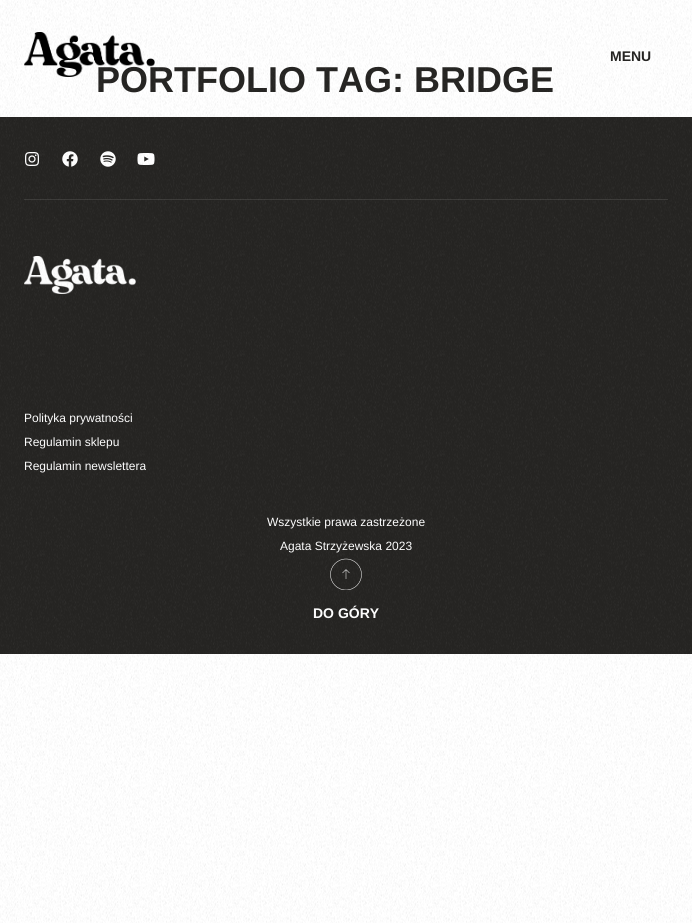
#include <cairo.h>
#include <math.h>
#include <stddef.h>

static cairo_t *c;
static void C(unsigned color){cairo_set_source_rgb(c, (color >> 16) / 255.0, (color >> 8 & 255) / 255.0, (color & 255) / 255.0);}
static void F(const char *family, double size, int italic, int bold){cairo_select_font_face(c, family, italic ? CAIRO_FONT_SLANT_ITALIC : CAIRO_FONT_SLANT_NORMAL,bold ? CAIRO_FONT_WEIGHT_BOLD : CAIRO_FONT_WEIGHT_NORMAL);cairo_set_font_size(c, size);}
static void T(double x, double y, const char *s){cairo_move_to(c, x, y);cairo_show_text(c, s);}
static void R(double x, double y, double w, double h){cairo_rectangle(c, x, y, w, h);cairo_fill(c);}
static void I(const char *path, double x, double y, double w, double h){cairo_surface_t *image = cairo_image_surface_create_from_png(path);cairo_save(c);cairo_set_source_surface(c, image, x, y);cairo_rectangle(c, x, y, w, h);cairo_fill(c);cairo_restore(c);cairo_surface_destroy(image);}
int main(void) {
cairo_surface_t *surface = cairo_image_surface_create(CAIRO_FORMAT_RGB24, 692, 923);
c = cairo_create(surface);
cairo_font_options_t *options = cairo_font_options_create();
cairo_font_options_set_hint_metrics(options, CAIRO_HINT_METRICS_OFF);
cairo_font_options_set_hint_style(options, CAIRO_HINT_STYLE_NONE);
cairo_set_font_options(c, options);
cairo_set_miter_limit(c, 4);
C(0xffffff);
cairo_paint(c);
F("Liberation Sans",36,0,1);
C(0x252422);
T(96,92,"PORTFOLIO TAG: BRIDGE");
R(0,117,692,537);
C(0x3c3b39);
R(24,199,644,1);
I("3.png",25,152,14,14);
I("4.png",62,151,16,16);
I("5.png",100,151,16,16);
I("6.png",137,153,18,12);
I("7.png",24,256,112,38);
F("Liberation Sans",12,0,0);
C(0xffffff);
T(24,422,"Polityka prywatności");
T(24,446,"Regulamin sklepu");
T(24,470,"Regulamin newslettera");
T(267,526,"Wszystkie prawa zastrzeżone");
T(280,550,"Agata Strzyżewska 2023");
cairo_new_path(c);
cairo_move_to(c,346,569.5);
cairo_line_to(c,349.5,573);
cairo_move_to(c,346,569.5);
cairo_line_to(c,342.5,573);
cairo_move_to(c,346,570);
cairo_line_to(c,346,579);
cairo_set_line_width(c,.5);
cairo_stroke(c);
cairo_save(c);
cairo_rectangle(c,330,558,32,32);
cairo_clip(c);
cairo_arc(c,346,574.5,15.5,0,2 * M_PI);
cairo_stroke(c);
cairo_restore(c);
F("Liberation Sans",14,0,1);
T(313,618,"DO GÓRY");
I("1.png",0,0,692,923);
I("2.png",24,32,131,45);
C(0x252422);
T(610,61,"MENU");
cairo_surface_write_to_png(surface, "o.png");
cairo_font_options_destroy(options);
cairo_destroy(c);
cairo_surface_destroy(surface);
return 0;
}
